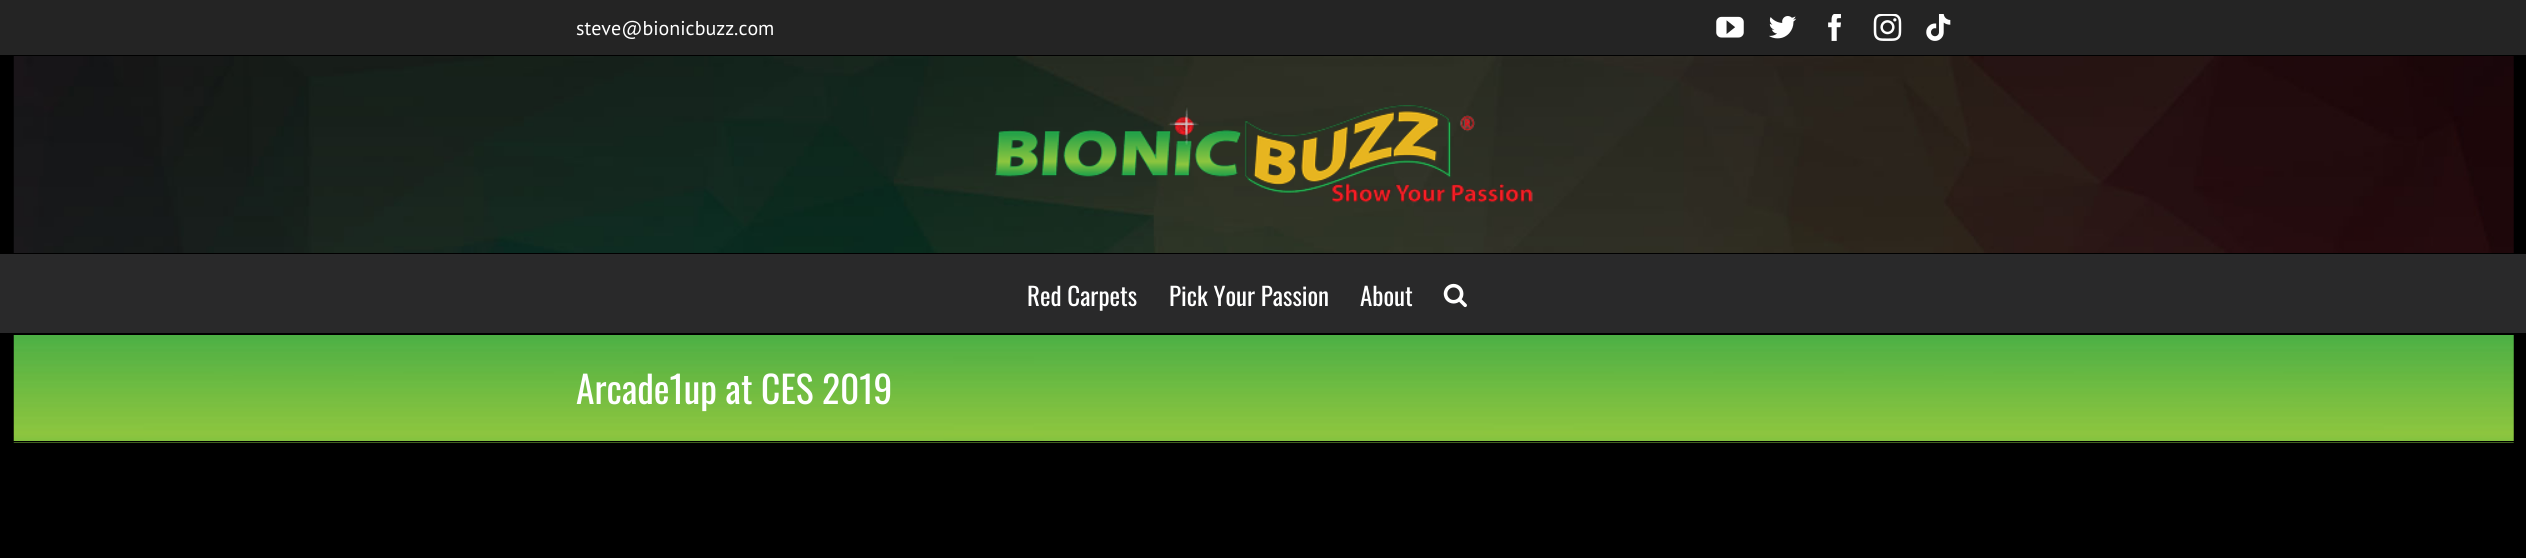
#include <cairo.h>
#include <math.h>
#include <stddef.h>

static cairo_t *c;
static void C(unsigned color){cairo_set_source_rgb(c, (color >> 16) / 255.0, (color >> 8 & 255) / 255.0, (color & 255) / 255.0);}
static void F(const char *family, double size, int italic, int bold){cairo_select_font_face(c, family, italic ? CAIRO_FONT_SLANT_ITALIC : CAIRO_FONT_SLANT_NORMAL,bold ? CAIRO_FONT_WEIGHT_BOLD : CAIRO_FONT_WEIGHT_NORMAL);cairo_set_font_size(c, size);}
static void T(double x, double y, const char *s){cairo_move_to(c, x, y);cairo_show_text(c, s);}
static void R(double x, double y, double w, double h){cairo_rectangle(c, x, y, w, h);cairo_fill(c);}
static void I(const char *path, double x, double y, double w, double h){cairo_surface_t *image = cairo_image_surface_create_from_png(path);cairo_save(c);cairo_set_source_surface(c, image, x, y);cairo_rectangle(c, x, y, w, h);cairo_fill(c);cairo_restore(c);cairo_surface_destroy(image);}
int main(void) {
cairo_surface_t *surface = cairo_image_surface_create(CAIRO_FORMAT_RGB24, 2526, 558);
c = cairo_create(surface);
cairo_font_options_t *options = cairo_font_options_create();
cairo_font_options_set_hint_metrics(options, CAIRO_HINT_METRICS_OFF);
cairo_font_options_set_hint_style(options, CAIRO_HINT_STYLE_NONE);
cairo_set_font_options(c, options);
cairo_set_miter_limit(c, 4);
C(0x000000);
cairo_paint(c);
C(0x242424);
R(0,0,2526,55);
F("PT Sans",20,0,0);
C(0xffffff);
T(576,35,"steve@bionicbuzz.com");
I("1.png",1716,16,28,22);
I("2.png",1769,16,28,23);
I("3.png",1828,14,13,27);
I("4.png",1873,14,29,27);
I("5.png",1926,14,25,27);
I("6.png",13,56,2501,197);
I("7.png",995,105,538,98);
C(0x29292a);
R(0,254,2526,79);
F("Oswald",25,0,0);
C(0xffffff);
T(1027,306,"Red Carpets");
T(1169,306,"Pick Your Passion");
T(1360,306,"About");
I("8.png",1443,283,24,25);
I("9.png",13,335,2501,108);
C(0x000000);
R(13,441,2501,1);
F("Oswald",37.5,0,0);
C(0xffffff);
T(576,404,"Arcade1up at CES 2019");
cairo_surface_write_to_png(surface, "o.png");
cairo_font_options_destroy(options);
cairo_destroy(c);
cairo_surface_destroy(surface);
return 0;
}
